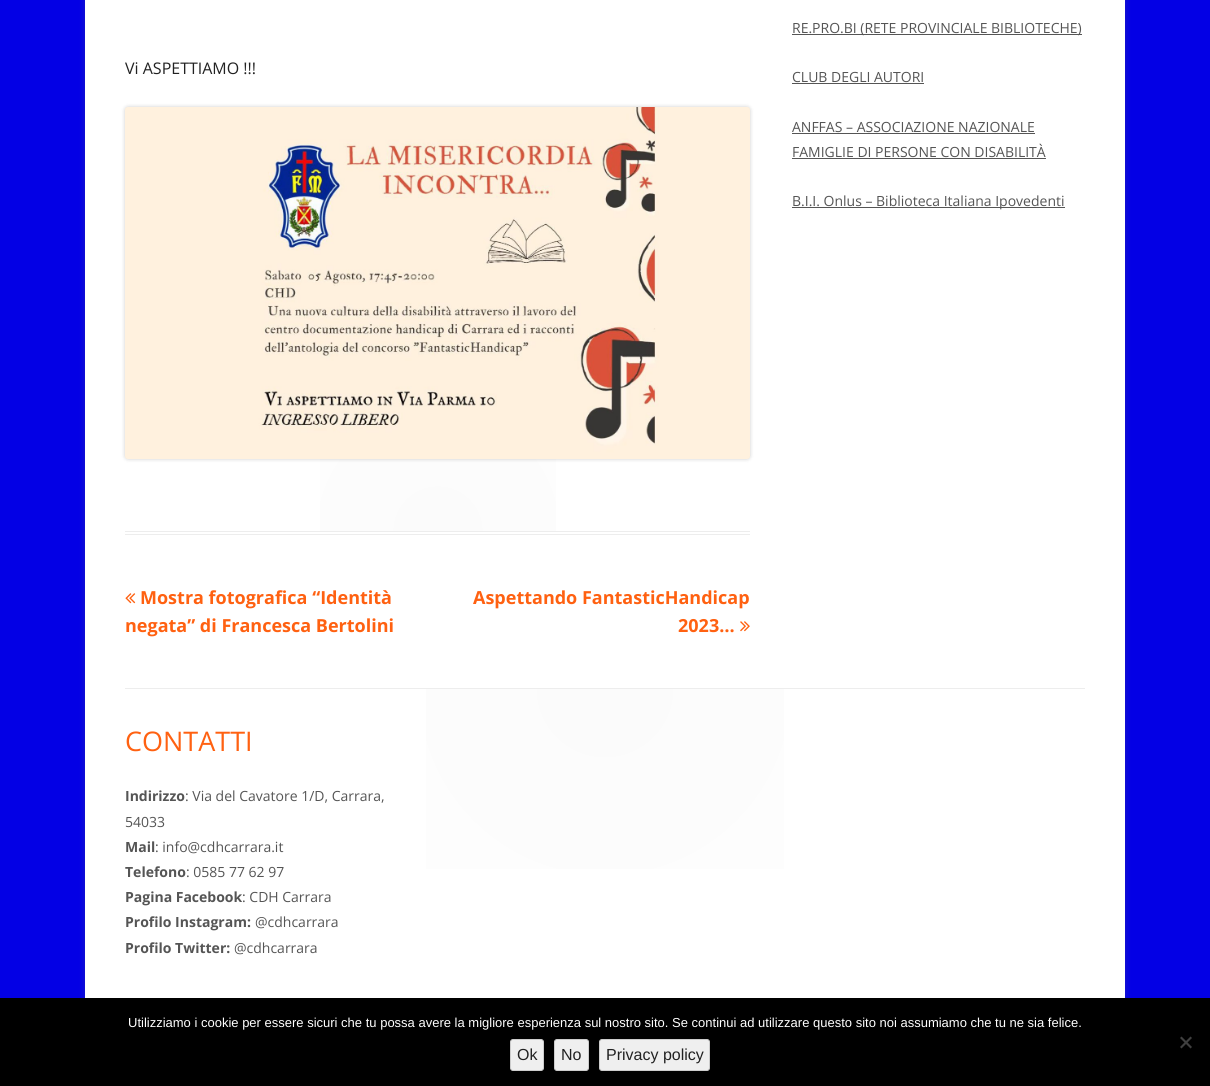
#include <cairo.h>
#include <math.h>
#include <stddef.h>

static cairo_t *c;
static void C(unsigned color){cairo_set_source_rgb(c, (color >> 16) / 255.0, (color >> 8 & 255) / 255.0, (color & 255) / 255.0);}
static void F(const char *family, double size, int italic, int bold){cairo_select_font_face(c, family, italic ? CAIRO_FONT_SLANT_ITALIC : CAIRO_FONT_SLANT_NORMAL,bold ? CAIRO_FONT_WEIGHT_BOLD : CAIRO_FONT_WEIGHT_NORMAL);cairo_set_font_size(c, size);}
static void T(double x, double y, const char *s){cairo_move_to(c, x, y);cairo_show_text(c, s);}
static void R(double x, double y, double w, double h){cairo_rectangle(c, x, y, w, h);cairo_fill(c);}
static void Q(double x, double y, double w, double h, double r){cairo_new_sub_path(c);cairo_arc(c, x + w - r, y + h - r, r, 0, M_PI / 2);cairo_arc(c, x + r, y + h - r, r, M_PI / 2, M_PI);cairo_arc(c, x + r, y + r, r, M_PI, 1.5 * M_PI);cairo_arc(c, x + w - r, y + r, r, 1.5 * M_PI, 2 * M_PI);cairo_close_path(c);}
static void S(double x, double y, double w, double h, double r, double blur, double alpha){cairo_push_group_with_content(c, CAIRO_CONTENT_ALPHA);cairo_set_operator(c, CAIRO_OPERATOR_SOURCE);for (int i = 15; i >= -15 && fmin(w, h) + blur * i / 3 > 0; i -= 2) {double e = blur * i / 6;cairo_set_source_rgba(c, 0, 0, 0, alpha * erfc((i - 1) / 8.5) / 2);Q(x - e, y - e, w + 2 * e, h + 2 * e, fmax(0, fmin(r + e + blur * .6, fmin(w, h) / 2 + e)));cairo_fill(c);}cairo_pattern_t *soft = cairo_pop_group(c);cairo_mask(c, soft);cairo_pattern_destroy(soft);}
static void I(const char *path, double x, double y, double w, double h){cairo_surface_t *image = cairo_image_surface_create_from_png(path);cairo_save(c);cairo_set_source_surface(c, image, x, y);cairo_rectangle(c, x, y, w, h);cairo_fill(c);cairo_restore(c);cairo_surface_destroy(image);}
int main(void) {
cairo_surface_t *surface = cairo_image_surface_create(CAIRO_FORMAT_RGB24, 1210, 1086);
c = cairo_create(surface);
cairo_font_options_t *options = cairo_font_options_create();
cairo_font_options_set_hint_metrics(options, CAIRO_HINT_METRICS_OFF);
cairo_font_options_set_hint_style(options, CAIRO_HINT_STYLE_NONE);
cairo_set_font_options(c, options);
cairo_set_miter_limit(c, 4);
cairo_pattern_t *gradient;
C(0x0300e5);
cairo_paint(c);
C(0x646464);
S(85,-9,1040,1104,0,3,.3);
C(0xffffff);
R(85,0,1040,998);
gradient = cairo_pattern_create_radial(438,531,0,438,531,313);
cairo_pattern_add_color_stop_rgba(gradient,0,0.984,0.984,0.984,1);
cairo_pattern_add_color_stop_rgba(gradient,1,1,1,1,1);
cairo_set_source(c,gradient);
cairo_pattern_destroy(gradient);
R(320,414,236,117);
C(0xededed);
R(125,531,625,1);
R(125,534,625,1);
F("Open Sans",16,0,0);
C(0x222222);
T(125,74,"Vi ASPETTIAMO !!!");
C(0x000000);
S(125,107,625,352,3,2,.2);
I("1.png",125,107,625,352);
I("2.png",125,593,11,11);
F("Open Sans",18,0,1);
C(0xff6111);
T(140,604,"Mostra fotografica “Identità");
T(125,632,"negata” di Francesca Bertolini");
T(473,604,"Aspettando FantasticHandicap");
T(678,632,"2023…");
I("3.png",740,621,10,11);
C(0x555555);
R(792,34,290,1);
F("Open Sans",14,0,0);
T(792,33,"RE.PRO.BI (RETE PROVINCIALE BIBLIOTECHE)");
T(792,82,"CLUB DEGLI AUTORI");
R(792,83,132,1);
T(792,132,"ANFFAS – ASSOCIAZIONE NAZIONALE");
R(792,133,243,1);
T(792,157,"FAMIGLIE DI PERSONE CON DISABILITÀ");
R(792,158,254,1);
R(792,207,273,1);
T(792,206,"B.I.I. Onlus – Biblioteca Italiana Ipovedenti");
gradient = cairo_pattern_create_radial(605,689,0,605,689,480);
cairo_pattern_add_color_stop_rgba(gradient,0,0.984,0.984,0.984,1);
cairo_pattern_add_color_stop_rgba(gradient,1,1,1,1,1);
cairo_set_source(c,gradient);
cairo_pattern_destroy(gradient);
R(426,689,358,180);
C(0xededed);
R(125,688,960,1);
F("Open Sans",27,0,0);
C(0xff6111);
T(125,751,"CONTATTI");
F("Open Sans",14,0,1);
C(0x555555);
T(125,801,"Indirizzo");
F("Open Sans",14,0,0);
T(185,801,": Via del Cavatore 1/D, Carrara,");
T(125,827,"54033");
F("Open Sans",14,0,1);
T(125,852,"Mail");
F("Open Sans",14,0,0);
T(155,852,": info@cdhcarrara.it");
F("Open Sans",14,0,1);
T(125,877,"Telefono");
F("Open Sans",14,0,0);
T(186,877,": 0585 77 62 97");
F("Open Sans",14,0,1);
T(125,902,"Pagina Facebook");
F("Open Sans",14,0,0);
T(242,902,": CDH Carrara");
F("Open Sans",14,0,1);
T(125,927,"Profilo Instagram:");
F("Open Sans",14,0,0);
T(255,927,"@cdhcarrara");
F("Open Sans",14,0,1);
T(125,953,"Profilo Twitter:");
F("Open Sans",14,0,0);
T(234,953,"@cdhcarrara");
C(0x000000);
R(0,998,1210,88);
F("Liberation Sans",13,0,0);
C(0xffffff);
T(128,1027,"Utilizziamo i cookie per essere sicuri che tu possa avere la migliore esperienza sul nostro sito. Se continui ad utilizzare questo sito noi assumiamo che tu ne sia felice.");
C(0x404040);
cairo_new_path(c);
cairo_move_to(c,1190.5,1036.5);
cairo_line_to(c,1192,1038);
cairo_line_to(c,1181.5,1048.5);
cairo_line_to(c,1180,1047);
cairo_close_path(c);
cairo_fill(c);
cairo_new_path(c);
cairo_move_to(c,1180,1038);
cairo_line_to(c,1181.5,1036.5);
cairo_line_to(c,1192,1047);
cairo_line_to(c,1190.5,1048.5);
cairo_close_path(c);
cairo_fill(c);
C(0xefefef);
Q(510.5,1039.5,33,31,2.5);
cairo_fill_preserve(c);
C(0xcccccc);
cairo_set_line_width(c,1);
cairo_stroke(c);
F("Liberation Sans",16,0,0);
C(0x222222);
T(517,1060,"Ok");
C(0xefefef);
Q(554.5,1039.5,34,31,2.5);
cairo_fill_preserve(c);
C(0xcccccc);
cairo_stroke(c);
C(0x222222);
T(561,1060,"No");
C(0xefefef);
Q(599.5,1039.5,110,31,2.5);
cairo_fill_preserve(c);
C(0xcccccc);
cairo_stroke(c);
C(0x222222);
T(606,1060,"Privacy policy");
cairo_surface_write_to_png(surface, "o.png");
cairo_font_options_destroy(options);
cairo_destroy(c);
cairo_surface_destroy(surface);
return 0;
}
